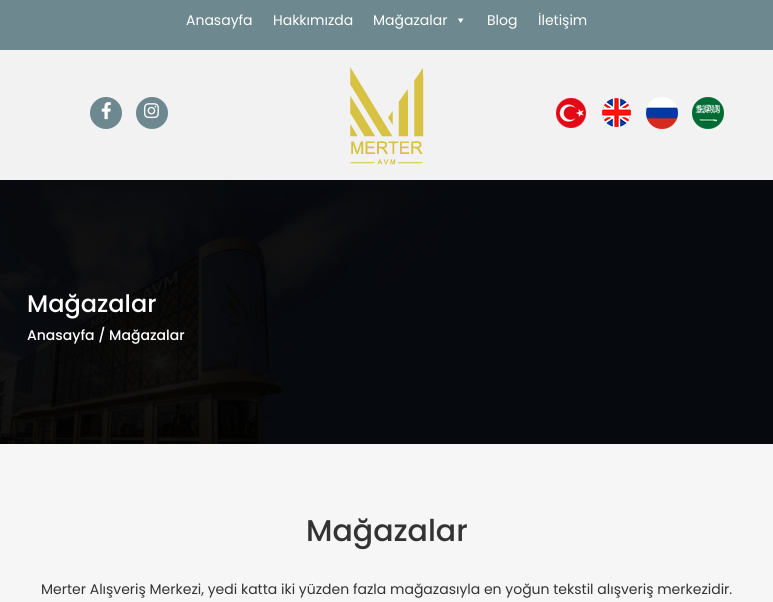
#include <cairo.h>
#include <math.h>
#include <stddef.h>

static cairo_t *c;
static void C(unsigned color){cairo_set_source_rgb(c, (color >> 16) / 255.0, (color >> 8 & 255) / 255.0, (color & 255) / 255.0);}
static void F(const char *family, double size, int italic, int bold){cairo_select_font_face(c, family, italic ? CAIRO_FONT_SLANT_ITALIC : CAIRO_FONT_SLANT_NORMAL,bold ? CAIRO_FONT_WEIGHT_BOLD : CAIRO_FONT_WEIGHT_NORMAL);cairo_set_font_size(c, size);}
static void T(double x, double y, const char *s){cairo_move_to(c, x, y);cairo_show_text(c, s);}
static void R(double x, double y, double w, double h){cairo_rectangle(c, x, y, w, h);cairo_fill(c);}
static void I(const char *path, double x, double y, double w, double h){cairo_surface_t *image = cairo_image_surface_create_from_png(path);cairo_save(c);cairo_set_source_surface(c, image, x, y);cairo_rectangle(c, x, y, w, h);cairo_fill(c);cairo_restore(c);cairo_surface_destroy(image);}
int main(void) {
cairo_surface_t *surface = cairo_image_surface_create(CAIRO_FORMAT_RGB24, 773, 602);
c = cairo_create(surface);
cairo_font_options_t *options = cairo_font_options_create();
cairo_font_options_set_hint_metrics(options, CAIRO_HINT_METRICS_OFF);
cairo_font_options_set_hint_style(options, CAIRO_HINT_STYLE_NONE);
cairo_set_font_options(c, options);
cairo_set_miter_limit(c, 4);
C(0xf2f2f2);
cairo_paint(c);
C(0x6d888e);
R(0,0,773,50);
F("Poppins",14,0,0);
C(0xffffff);
T(186,25,"Anasayfa");
T(273,25,"Hakkımızda");
T(373,25,"Mağazalar");
cairo_new_path(c);
cairo_move_to(c,463.5,18.5);
cairo_line_to(c,460.5,23);
cairo_line_to(c,458,18.5);
cairo_close_path(c);
cairo_fill(c);
T(487,25,"Blog");
T(538,25,"İletişim");
C(0x6d888e);
cairo_new_path(c);
cairo_arc(c,106,113,16,0,2 * M_PI);
cairo_fill(c);
I("1.png",101,102,10,18);
cairo_arc(c,152,113,16,0,2 * M_PI);
cairo_fill(c);
I("2.png",144,103,15,16);
I("3.png",350,67,74,98);
I("4.png",556,98,30,30);
I("5.png",602,98,29,29);
I("6.png",646,97,32,32);
I("7.png",692,97,32,32);
I("8.png",0,180,773,264);
F("Poppins Medium",24,0,0);
C(0xffffff);
T(27,312,"Mağazalar");
F("Poppins Medium",14,0,0);
T(27,340,"Anasayfa / Mağazalar");
C(0xf6f6f6);
R(0,444,773,158);
F("Poppins Medium",30,0,0);
C(0x333333);
T(306,541,"Mağazalar");
F("Poppins",14,0,0);
T(41,594,"Merter Alışveriş Merkezi, yedi katta iki yüzden fazla mağazasıyla en yoğun tekstil alışveriş merkezidir.");
cairo_surface_write_to_png(surface, "o.png");
cairo_font_options_destroy(options);
cairo_destroy(c);
cairo_surface_destroy(surface);
return 0;
}
